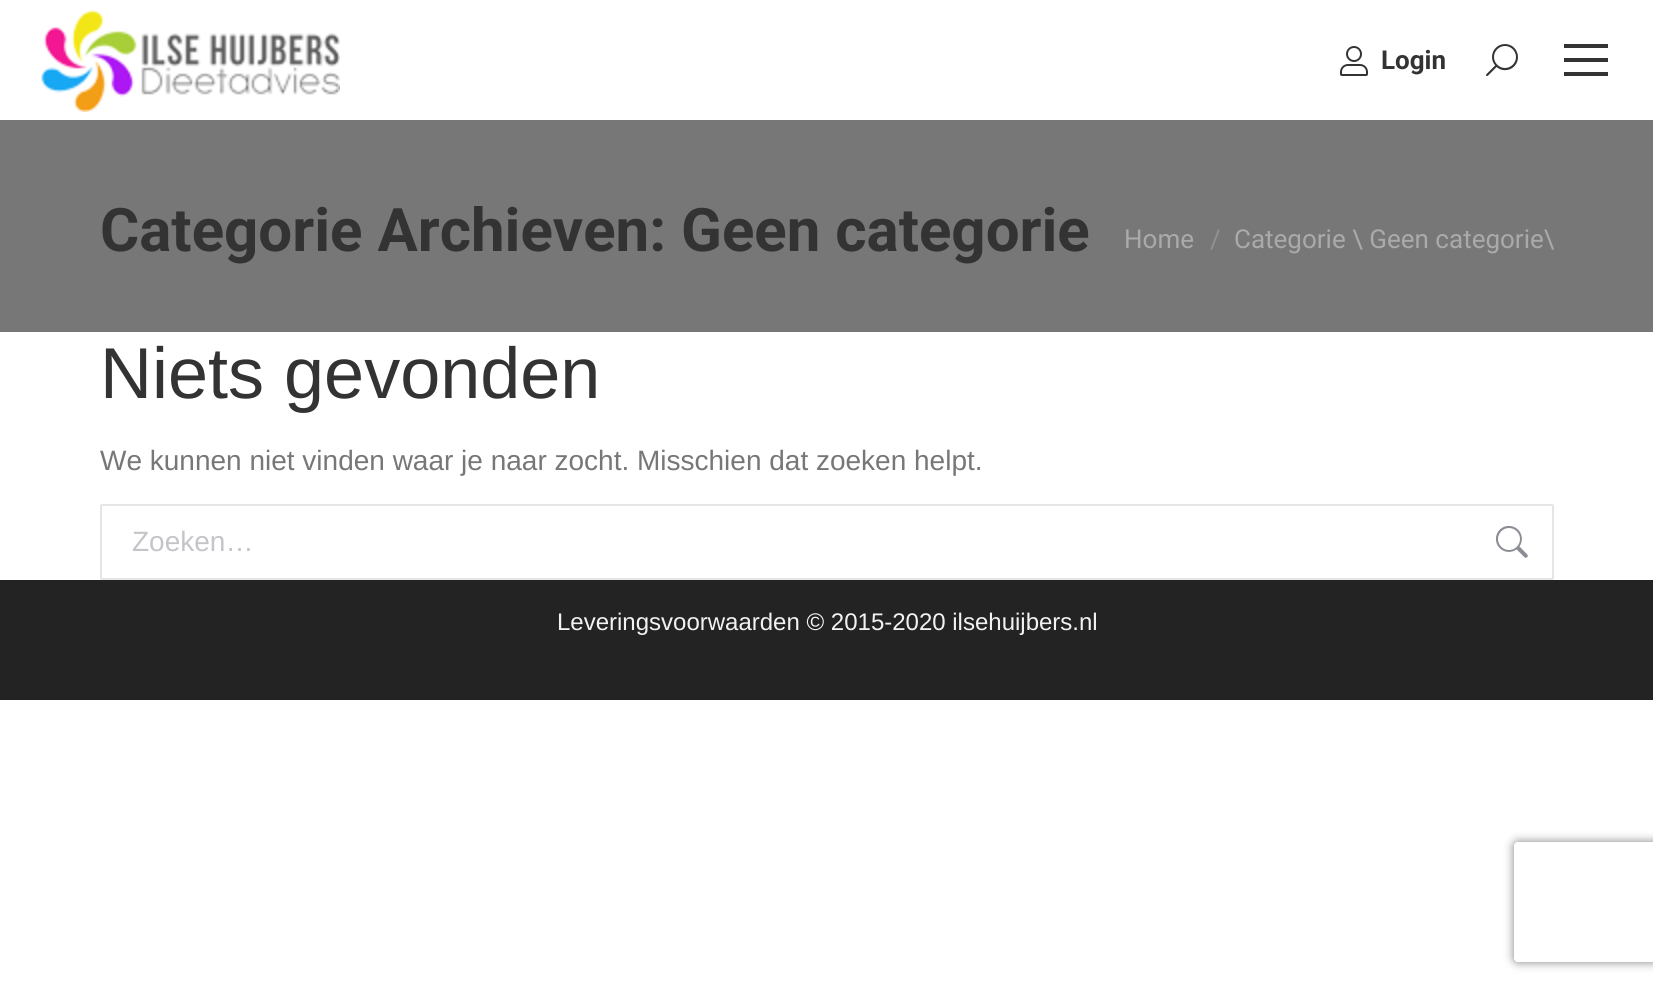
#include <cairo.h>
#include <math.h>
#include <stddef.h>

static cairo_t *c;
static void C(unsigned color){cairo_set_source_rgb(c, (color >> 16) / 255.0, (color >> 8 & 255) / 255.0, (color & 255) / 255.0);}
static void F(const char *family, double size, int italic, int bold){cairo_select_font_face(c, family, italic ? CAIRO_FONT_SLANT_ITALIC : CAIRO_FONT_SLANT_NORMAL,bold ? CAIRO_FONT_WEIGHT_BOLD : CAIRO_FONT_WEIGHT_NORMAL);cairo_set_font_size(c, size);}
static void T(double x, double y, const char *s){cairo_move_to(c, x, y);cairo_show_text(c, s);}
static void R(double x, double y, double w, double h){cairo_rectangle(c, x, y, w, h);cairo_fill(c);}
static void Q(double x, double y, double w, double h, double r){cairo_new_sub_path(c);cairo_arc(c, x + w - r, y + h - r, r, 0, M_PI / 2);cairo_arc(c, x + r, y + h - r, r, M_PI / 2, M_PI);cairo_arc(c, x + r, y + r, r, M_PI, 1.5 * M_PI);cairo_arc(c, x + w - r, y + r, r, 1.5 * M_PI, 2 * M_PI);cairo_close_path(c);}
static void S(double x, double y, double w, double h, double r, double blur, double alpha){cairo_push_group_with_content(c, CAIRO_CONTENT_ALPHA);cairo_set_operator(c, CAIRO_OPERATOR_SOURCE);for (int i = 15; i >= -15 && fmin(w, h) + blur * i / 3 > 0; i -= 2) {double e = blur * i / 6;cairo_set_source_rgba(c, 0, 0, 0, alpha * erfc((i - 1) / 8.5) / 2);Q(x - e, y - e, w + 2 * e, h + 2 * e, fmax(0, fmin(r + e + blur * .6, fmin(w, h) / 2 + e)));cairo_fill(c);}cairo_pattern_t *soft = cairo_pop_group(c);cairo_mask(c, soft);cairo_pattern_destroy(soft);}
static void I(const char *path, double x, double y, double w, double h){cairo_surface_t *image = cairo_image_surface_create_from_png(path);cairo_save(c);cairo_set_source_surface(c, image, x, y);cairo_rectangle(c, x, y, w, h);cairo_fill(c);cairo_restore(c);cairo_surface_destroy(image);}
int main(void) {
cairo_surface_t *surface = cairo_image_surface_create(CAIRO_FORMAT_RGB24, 1653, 990);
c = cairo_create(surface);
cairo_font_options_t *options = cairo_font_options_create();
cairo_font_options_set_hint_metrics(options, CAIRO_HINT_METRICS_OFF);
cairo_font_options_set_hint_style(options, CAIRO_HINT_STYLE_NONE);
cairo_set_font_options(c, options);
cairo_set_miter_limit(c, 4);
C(0xffffff);
cairo_paint(c);
I("1.png",41,10,299,102);
I("2.png",1340,46,28,30);
F("Roboto",26,0,1);
C(0x333333);
T(1381,69,"Login");
I("3.png",1486,44,32,32);
R(1564,44,44,4);
R(1564,58,44,4);
R(1564,72,44,4);
C(0x777777);
R(0,120,1653,212);
F("Roboto",60,0,1);
C(0x333333);
T(100,251,"Categorie Archieven: Geen categorie");
F("Roboto",26,0,0);
C(0xaaaaaa);
T(1124,248,"Home");
C(0x919191);
T(1210,248,"/");
C(0xaaaaaa);
T(1234,248,"Categorie \\ Geen categorie\\");
F("Arimo",72,0,0);
C(0x333333);
T(100,398,"Niets gevonden");
F("Arimo",28,0,0);
C(0x777777);
T(100,470,"We kunnen niet vinden waar je naar zocht. Misschien dat zoeken helpt.");
Q(101,505,1452,74,1);
C(0xe5e5e5);
cairo_stroke(c);
C(0xc4c5c9);
T(132,551,"Zoeken…");
I("4.png",1496,526,32,32);
C(0x232323);
R(0,580,1653,120);
F("Arimo",24,0,0);
C(0xf2f2f2);
T(557,630,"Leveringsvoorwaarden © 2015-2020 ilsehuijbers.nl");
cairo_save(c);
cairo_set_fill_rule(c,CAIRO_FILL_RULE_EVEN_ODD);
cairo_new_path(c);
cairo_move_to(c,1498,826);
cairo_line_to(c,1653,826);
cairo_line_to(c,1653,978);
cairo_line_to(c,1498,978);
cairo_close_path(c);
cairo_move_to(c,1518,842);
cairo_line_to(c,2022,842);
cairo_curve_to(c,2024,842,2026,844,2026,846);
cairo_line_to(c,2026,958);
cairo_curve_to(c,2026,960,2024,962,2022,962);
cairo_line_to(c,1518,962);
cairo_curve_to(c,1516,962,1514,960,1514,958);
cairo_line_to(c,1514,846);
cairo_curve_to(c,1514,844,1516,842,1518,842);
cairo_close_path(c);
cairo_clip(c);
C(0x808080);
S(1514,842,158,120,4,5,1);
cairo_restore(c);
cairo_surface_write_to_png(surface, "o.png");
cairo_font_options_destroy(options);
cairo_destroy(c);
cairo_surface_destroy(surface);
return 0;
}
